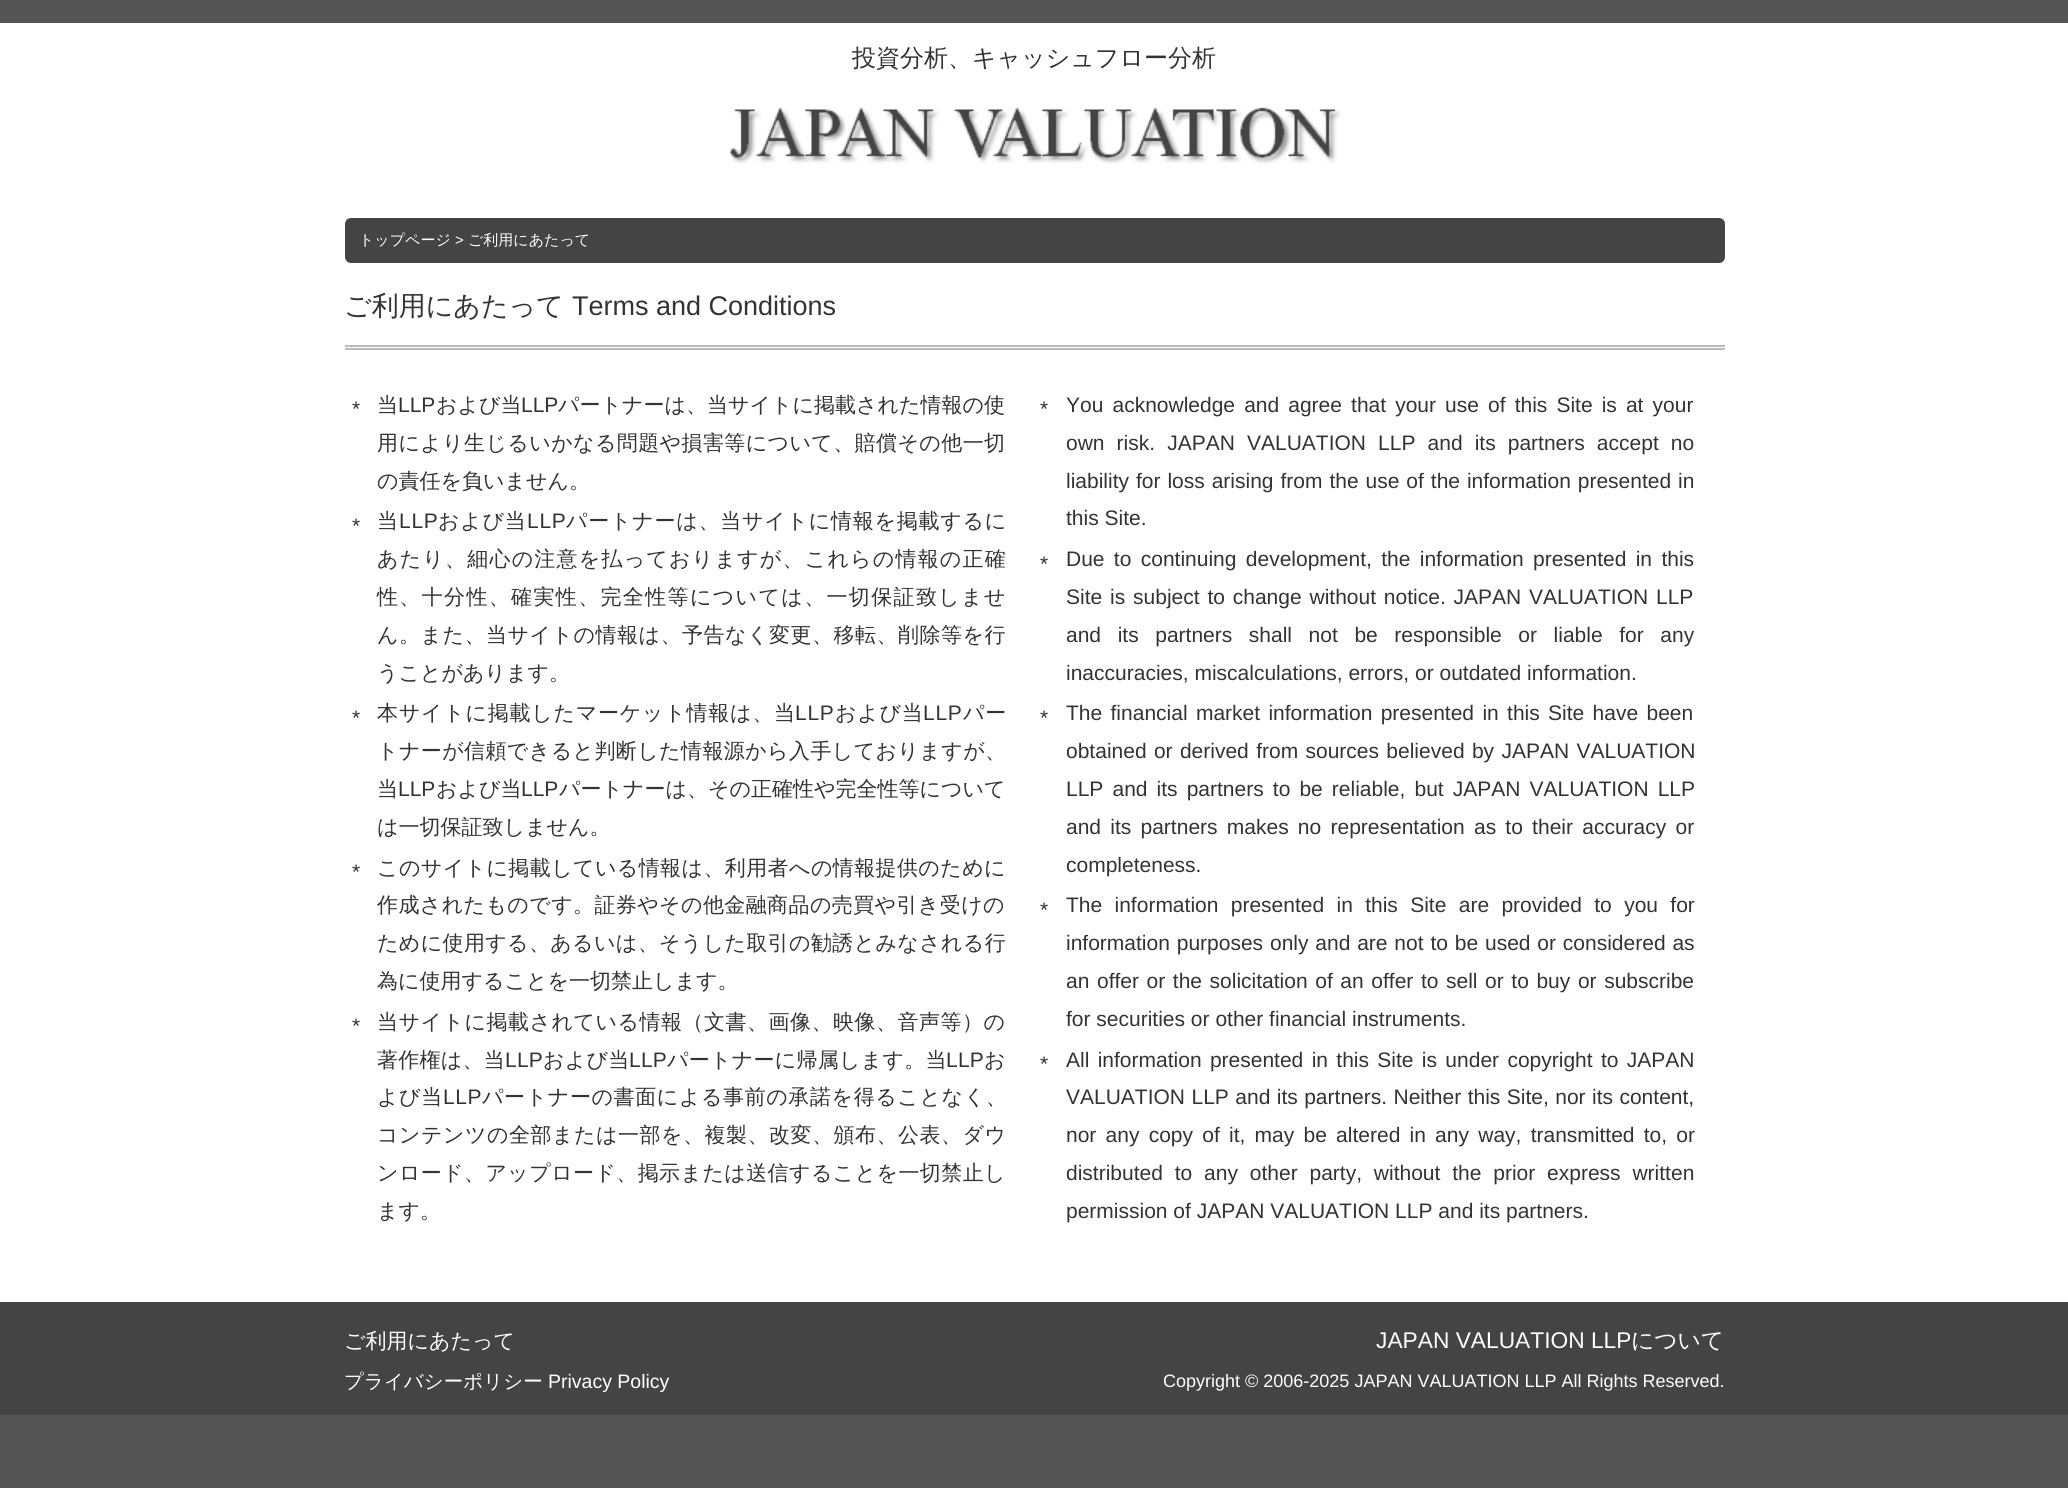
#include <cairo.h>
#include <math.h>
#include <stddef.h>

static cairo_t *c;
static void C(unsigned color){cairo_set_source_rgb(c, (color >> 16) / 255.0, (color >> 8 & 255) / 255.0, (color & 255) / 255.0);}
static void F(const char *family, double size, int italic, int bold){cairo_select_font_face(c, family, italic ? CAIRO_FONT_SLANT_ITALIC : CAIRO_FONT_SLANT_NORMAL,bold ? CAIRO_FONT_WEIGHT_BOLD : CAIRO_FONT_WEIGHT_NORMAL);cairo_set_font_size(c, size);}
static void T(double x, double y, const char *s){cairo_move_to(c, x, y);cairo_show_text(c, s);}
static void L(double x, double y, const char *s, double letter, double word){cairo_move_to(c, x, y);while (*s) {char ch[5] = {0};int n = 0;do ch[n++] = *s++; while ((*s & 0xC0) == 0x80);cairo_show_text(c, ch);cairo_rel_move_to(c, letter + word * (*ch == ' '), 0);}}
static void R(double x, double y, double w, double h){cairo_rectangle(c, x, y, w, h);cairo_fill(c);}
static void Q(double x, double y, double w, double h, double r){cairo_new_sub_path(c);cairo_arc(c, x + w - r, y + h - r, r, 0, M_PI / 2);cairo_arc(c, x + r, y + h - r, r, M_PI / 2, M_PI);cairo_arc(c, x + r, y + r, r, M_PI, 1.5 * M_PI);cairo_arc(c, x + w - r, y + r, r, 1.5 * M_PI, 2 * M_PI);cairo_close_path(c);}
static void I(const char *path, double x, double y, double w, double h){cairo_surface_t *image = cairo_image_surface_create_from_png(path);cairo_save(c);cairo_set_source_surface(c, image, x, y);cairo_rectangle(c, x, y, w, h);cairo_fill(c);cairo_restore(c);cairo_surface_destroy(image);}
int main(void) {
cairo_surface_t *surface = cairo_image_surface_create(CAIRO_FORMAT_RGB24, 2068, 1488);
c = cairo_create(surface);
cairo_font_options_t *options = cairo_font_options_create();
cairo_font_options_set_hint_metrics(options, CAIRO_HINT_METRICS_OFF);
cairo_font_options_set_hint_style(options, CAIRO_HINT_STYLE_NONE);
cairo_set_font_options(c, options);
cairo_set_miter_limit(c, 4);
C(0x555555);
cairo_paint(c);
C(0xffffff);
R(0,23,2068,1279);
F("WenQuanYi Zen Hei Medium",24,0,0);
C(0x333333);
T(852,66,"投資分析、キャッシュフロー分析");
I("1.png",730,107,611,57);
C(0x444444);
Q(345,218,1380,45,6);
cairo_fill(c);
F("WenQuanYi Zen Hei Medium",15,0,0);
C(0xffffff);
T(359,245,"トップページ");
F("Liberation Sans",15,0,0);
T(455,245,">");
F("WenQuanYi Zen Hei Medium",15,0,0);
T(468,245,"ご利用にあたって");
C(0xbbbbbb);
R(345,345,1380,2);
R(345,348,1380,2);
F("WenQuanYi Zen Hei Medium",27,0,0);
C(0x333333);
T(344,315,"ご利用にあたって");
F("Liberation Sans",27,0,0);
T(572,315,"Terms and Conditions");
F("Liberation Sans",21,0,0);
T(352,416,"*");
F("WenQuanYi Zen Hei Medium",21,0,0);
T(377,412,"当");
F("Liberation Sans",21,0,0);
T(398,412,"LLP");
F("WenQuanYi Zen Hei Medium",21,0,0);
T(436,412,"および当");
F("Liberation Sans",21,0,0);
T(521,412,"LLP");
F("WenQuanYi Zen Hei Medium",21,0,0);
T(558,412,"パートナーは、当サイトに掲載された情報の使");
L(377,450,"用により生じるいかなる問題や損害等について、賠償その他一切",.4,0);
T(377,488,"の責任を負いません。");
F("Liberation Sans",21,0,0);
T(352,533,"*");
F("WenQuanYi Zen Hei Medium",21,0,0);
L(377,528,"当",.75,0);
F("Liberation Sans",21,0,0);
L(399,528,"LLP",.75,0);
F("WenQuanYi Zen Hei Medium",21,0,0);
L(438,528,"および当",.75,0);
F("Liberation Sans",21,0,0);
L(527,528,"LLP",.75,0);
F("WenQuanYi Zen Hei Medium",21,0,0);
L(566,528,"パートナーは、当サイトに情報を掲載するに",.75,0);
L(377,566,"あたり、細心の注意を払っておりますが、これらの情報の正確",1.2,0);
L(377,604,"性、十分性、確実性、完全性等については、一切保証致しませ",1.35,0);
L(377,642,"ん。また、当サイトの情報は、予告なく変更、移転、削除等を行",.5,0);
T(377,680,"うことがあります。");
F("Liberation Sans",21,0,0);
T(352,725,"*");
F("WenQuanYi Zen Hei Medium",21,0,0);
L(377,720,"本サイトに掲載したマーケット情報は、当",.75,0);
F("Liberation Sans",21,0,0);
L(795,720,"LLP",.75,0);
F("WenQuanYi Zen Hei Medium",21,0,0);
L(835,720,"および当",.75,0);
F("Liberation Sans",21,0,0);
L(923,720,"LLP",.75,0);
F("WenQuanYi Zen Hei Medium",21,0,0);
L(963,720,"パー",.75,0);
L(377,758,"トナーが信頼できると判断した情報源から入手しておりますが、",.4,0);
T(377,796,"当");
F("Liberation Sans",21,0,0);
T(398,796,"LLP");
F("WenQuanYi Zen Hei Medium",21,0,0);
T(436,796,"および当");
F("Liberation Sans",21,0,0);
T(521,796,"LLP");
F("WenQuanYi Zen Hei Medium",21,0,0);
T(559,796,"パートナーは、その正確性や完全性等について");
T(377,834,"は一切保証致しません。");
F("Liberation Sans",21,0,0);
T(352,879,"*");
F("WenQuanYi Zen Hei Medium",21,0,0);
L(377,875,"このサイトに掲載している情報は、利用者への情報提供のために",.4,0);
L(377,912,"作成されたものです。証券やその他金融商品の売買や引き受けの",.4,0);
L(377,950,"ために使用する、あるいは、そうした取引の勧誘とみなされる行",.35,0);
T(377,988,"為に使用することを一切禁止します。");
F("Liberation Sans",21,0,0);
T(352,1033,"*");
F("WenQuanYi Zen Hei Medium",21,0,0);
L(377,1029,"当サイトに掲載されている情報（文書、画像、映像、音声等）の",.5,0);
L(377,1067,"著作権は、当",.25,0);
F("Liberation Sans",21,0,0);
L(505,1067,"LLP",.25,0);
F("WenQuanYi Zen Hei Medium",21,0,0);
L(543,1067,"および当",.25,0);
F("Liberation Sans",21,0,0);
L(629,1067,"LLP",.25,0);
F("WenQuanYi Zen Hei Medium",21,0,0);
L(667,1067,"パートナーに帰属します。当",.25,0);
F("Liberation Sans",21,0,0);
L(946,1067,"LLP",.25,0);
F("WenQuanYi Zen Hei Medium",21,0,0);
L(984,1067,"お",.25,0);
L(377,1104,"よび当",.6,0);
F("Liberation Sans",21,0,0);
L(443,1104,"LLP",.6,0);
F("WenQuanYi Zen Hei Medium",21,0,0);
L(482,1104,"パートナーの書面による事前の承諾を得ることなく、",.6,0);
L(377,1142,"コンテンツの全部または一部を、複製、改変、頒布、公表、ダウ",.5,0);
L(377,1180,"ンロード、アップロード、掲示または送信することを一切禁止し",.4,0);
T(377,1218,"ます。");
F("Liberation Sans",21,0,0);
T(1040,416,"*");
L(1066,412,"You acknowledge and agree that your use of this Site is at your",0,3.25);
L(1066,450,"own risk. JAPAN VALUATION LLP and its partners accept no",0,6.25);
L(1066,488,"liability for loss arising from the use of the information presented in",0,1.1);
T(1066,525,"this Site.");
T(1040,571,"*");
L(1066,566,"Due to continuing development, the information presented in this",0,3.5);
L(1066,604,"Site is subject to change without notice. JAPAN VALUATION LLP",0,2);
L(1066,642,"and its partners shall not be responsible or liable for any",0,10.75);
T(1066,680,"inaccuracies, miscalculations, errors, or outdated information.");
T(1040,725,"*");
L(1066,720,"The financial market information presented in this Site have been",0,2.5);
L(1066,758,"obtained or derived from sources believed by JAPAN VALUATION",0,1.5);
L(1066,796,"LLP and its partners to be reliable, but JAPAN VALUATION LLP",0,3.25);
L(1066,834,"and its partners makes no representation as to their accuracy or",0,3.4);
T(1066,872,"completeness.");
T(1040,917,"*");
L(1066,912,"The information presented in this Site are provided to you for",0,6.5);
L(1066,950,"information purposes only and are not to be used or considered as",0,1);
L(1066,988,"an offer or the solicitation of an offer to sell or to buy or subscribe",0,1.75);
T(1066,1026,"for securities or other financial instruments.");
T(1040,1071,"*");
L(1066,1067,"All information presented in this Site is under copyright to JAPAN",0,2.5);
L(1066,1104,"VALUATION LLP and its partners. Neither this Site, nor its content,",0,.6);
L(1066,1142,"nor any copy of it, may be altered in any way, transmitted to, or",0,3.4);
L(1066,1180,"distributed to any other party, without the prior express written",0,6);
T(1066,1218,"permission of JAPAN VALUATION LLP and its partners.");
C(0x444444);
R(0,1302,2068,113);
F("WenQuanYi Zen Hei Medium",21,0,0);
C(0xffffff);
T(344,1348,"ご利用にあたって");
F("Liberation Sans",22.75,0,0);
T(1376,1348,"JAPAN VALUATION LLP");
F("WenQuanYi Zen Hei Medium",22.75,0,0);
T(1631,1348,"について");
F("WenQuanYi Zen Hei Medium",19.5,0,0);
T(344,1388,"プライバシーポリシー");
F("Liberation Sans",19.5,0,0);
T(548,1388,"Privacy Policy");
F("Liberation Sans",18,0,0);
T(1163,1387,"Copyright © 2006-2025 JAPAN VALUATION LLP All Rights Reserved.");
cairo_surface_write_to_png(surface, "o.png");
cairo_font_options_destroy(options);
cairo_destroy(c);
cairo_surface_destroy(surface);
return 0;
}
